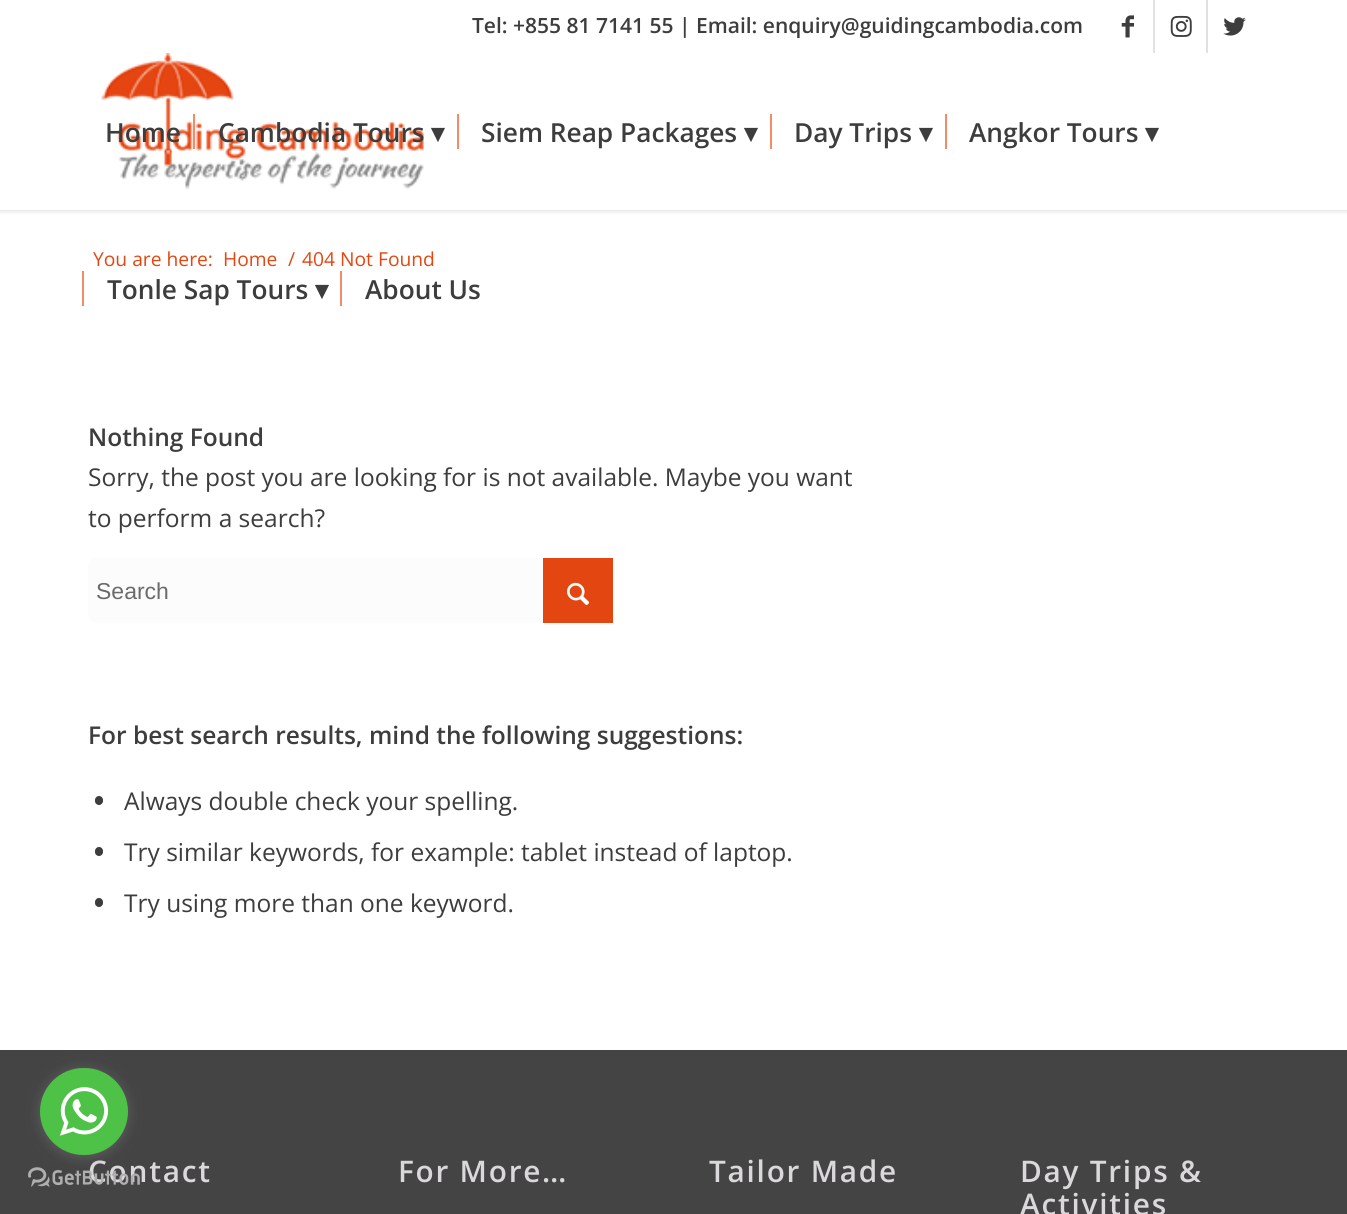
#include <cairo.h>
#include <math.h>
#include <stddef.h>

static cairo_t *c;
static void C(unsigned color){cairo_set_source_rgb(c, (color >> 16) / 255.0, (color >> 8 & 255) / 255.0, (color & 255) / 255.0);}
static void F(const char *family, double size, int italic, int bold){cairo_select_font_face(c, family, italic ? CAIRO_FONT_SLANT_ITALIC : CAIRO_FONT_SLANT_NORMAL,bold ? CAIRO_FONT_WEIGHT_BOLD : CAIRO_FONT_WEIGHT_NORMAL);cairo_set_font_size(c, size);}
static void T(double x, double y, const char *s){cairo_move_to(c, x, y);cairo_show_text(c, s);}
static void L(double x, double y, const char *s, double letter, double word){cairo_move_to(c, x, y);while (*s) {char ch[5] = {0};int n = 0;do ch[n++] = *s++; while ((*s & 0xC0) == 0x80);cairo_show_text(c, ch);cairo_rel_move_to(c, letter + word * (*ch == ' '), 0);}}
static void R(double x, double y, double w, double h){cairo_rectangle(c, x, y, w, h);cairo_fill(c);}
static void Q(double x, double y, double w, double h, double r){cairo_new_sub_path(c);cairo_arc(c, x + w - r, y + h - r, r, 0, M_PI / 2);cairo_arc(c, x + r, y + h - r, r, M_PI / 2, M_PI);cairo_arc(c, x + r, y + r, r, M_PI, 1.5 * M_PI);cairo_arc(c, x + w - r, y + r, r, 1.5 * M_PI, 2 * M_PI);cairo_close_path(c);}
static void S(double x, double y, double w, double h, double r, double blur, double alpha){cairo_push_group_with_content(c, CAIRO_CONTENT_ALPHA);cairo_set_operator(c, CAIRO_OPERATOR_SOURCE);for (int i = 15; i >= -15 && fmin(w, h) + blur * i / 3 > 0; i -= 2) {double e = blur * i / 6;cairo_set_source_rgba(c, 0, 0, 0, alpha * erfc((i - 1) / 8.5) / 2);Q(x - e, y - e, w + 2 * e, h + 2 * e, fmax(0, fmin(r + e + blur * .6, fmin(w, h) / 2 + e)));cairo_fill(c);}cairo_pattern_t *soft = cairo_pop_group(c);cairo_mask(c, soft);cairo_pattern_destroy(soft);}
static void I(const char *path, double x, double y, double w, double h){cairo_surface_t *image = cairo_image_surface_create_from_png(path);cairo_save(c);cairo_set_source_surface(c, image, x, y);cairo_rectangle(c, x, y, w, h);cairo_fill(c);cairo_restore(c);cairo_surface_destroy(image);}
int main(void) {
cairo_surface_t *surface = cairo_image_surface_create(CAIRO_FORMAT_RGB24, 1347, 1214);
c = cairo_create(surface);
cairo_font_options_t *options = cairo_font_options_create();
cairo_font_options_set_hint_metrics(options, CAIRO_HINT_METRICS_OFF);
cairo_font_options_set_hint_style(options, CAIRO_HINT_STYLE_NONE);
cairo_set_font_options(c, options);
cairo_set_miter_limit(c, 4);
C(0xffffff);
cairo_paint(c);
C(0x444444);
R(0,1050,1347,164);
F("Open Sans SemiBold",29.75,0,0);
C(0xdbd8db);
L(88,1182,"Contact",1.75,0);
I("2.png",28,1167,112,20);
C(0x888888);
S(40,1069,88,88,44,6,.4);
C(0x4dc247);
Q(40,1068,88,87,43.5);
cairo_fill(c);
I("1.png",60,1087,49,49);
cairo_save(c);
cairo_rectangle(c,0,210,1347,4);
cairo_clip(c);
C(0x000000);
S(-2,-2,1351,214,0,2,.1);
cairo_restore(c);
F("Open Sans SemiBold",21,0,0);
C(0x3d3d3d);
T(472,33,"Tel: +855 81 7141 55 | Email: enquiry@guidingcambodia.com");
C(0xe1e1e1);
R(1153,0,2,53);
I("3.png",1121,15,13,23);
R(1206,0,2,53);
I("4.png",1170,15,22,22);
I("5.png",1223,17,23,19);
I("6.png",101,53,323,137);
F("Open Sans SemiBold",26.25,0,0);
C(0x3d3d3d);
T(105,142,"Home");
T(218,142,"Cambodia Tours");
C(0xf48b67);
R(193,114,2,35);
F("DejaVu Sans",26.25,0,1);
C(0x3d3d3d);
T(431,142,"▾");
F("Open Sans SemiBold",26.25,0,0);
T(481,142,"Siem Reap Packages");
C(0xf48b67);
R(457,114,2,35);
F("DejaVu Sans",26.25,0,1);
C(0x3d3d3d);
T(744,142,"▾");
F("Open Sans SemiBold",26.25,0,0);
T(794,142,"Day Trips");
C(0xf48b67);
R(770,114,2,35);
F("DejaVu Sans",26.25,0,1);
C(0x3d3d3d);
T(919,142,"▾");
F("Open Sans SemiBold",26.25,0,0);
T(969,142,"Angkor Tours");
C(0xf48b67);
R(945,114,2,35);
F("DejaVu Sans",26.25,0,1);
C(0x3d3d3d);
T(1145,142,"▾");
F("Open Sans SemiBold",26.25,0,0);
T(107,299,"Tonle Sap Tours");
C(0xf48b67);
R(82,271,2,35);
F("DejaVu Sans",26.25,0,1);
C(0x3d3d3d);
T(315,299,"▾");
F("Open Sans SemiBold",26.25,0,0);
T(365,299,"About Us");
C(0xf48b67);
R(340,271,2,35);
F("Open Sans",19.25,0,0);
C(0xe44611);
T(93,266,"You are here:");
T(223,266,"Home");
T(288,266,"/");
T(302,266,"404 Not Found");
F("Open Sans SemiBold",24.5,0,0);
C(0x3d3d3d);
T(88,446,"Nothing Found");
F("Open Sans",24.5,0,0);
T(88,486,"Sorry, the post you are looking for is not available. Maybe you want");
T(88,527,"to perform a search?");
C(0xfcfcfc);
Q(88,558,525,65,9);
cairo_fill(c);
F("Liberation Sans",23,0,0);
C(0x6b6b6b);
T(96,599,"Search");
C(0xe44611);
R(543,558,70,65);
I("7.png",567,582,23,23);
F("Open Sans SemiBold",24.5,0,0);
C(0x3d3d3d);
T(88,744,"For best search results, mind the following suggestions:");
Q(95,796,8,9,4);
cairo_fill(c);
F("Open Sans",24.5,0,0);
T(124,810,"Always double check your spelling.");
Q(95,847,8,9,4);
cairo_fill(c);
T(124,861,"Try similar keywords, for example: tablet instead of laptop.");
Q(95,898,8,9,4);
cairo_fill(c);
T(124,912,"Try using more than one keyword.");
F("Open Sans SemiBold",29.75,0,0);
C(0xdbd8db);
L(398,1182,"For More…",1.75,0);
L(709,1182,"Tailor Made",1.75,0);
L(1020,1182,"Day Trips &",1.75,0);
L(1020,1215,"Activities",1.75,0);
cairo_surface_write_to_png(surface, "o.png");
cairo_font_options_destroy(options);
cairo_destroy(c);
cairo_surface_destroy(surface);
return 0;
}
